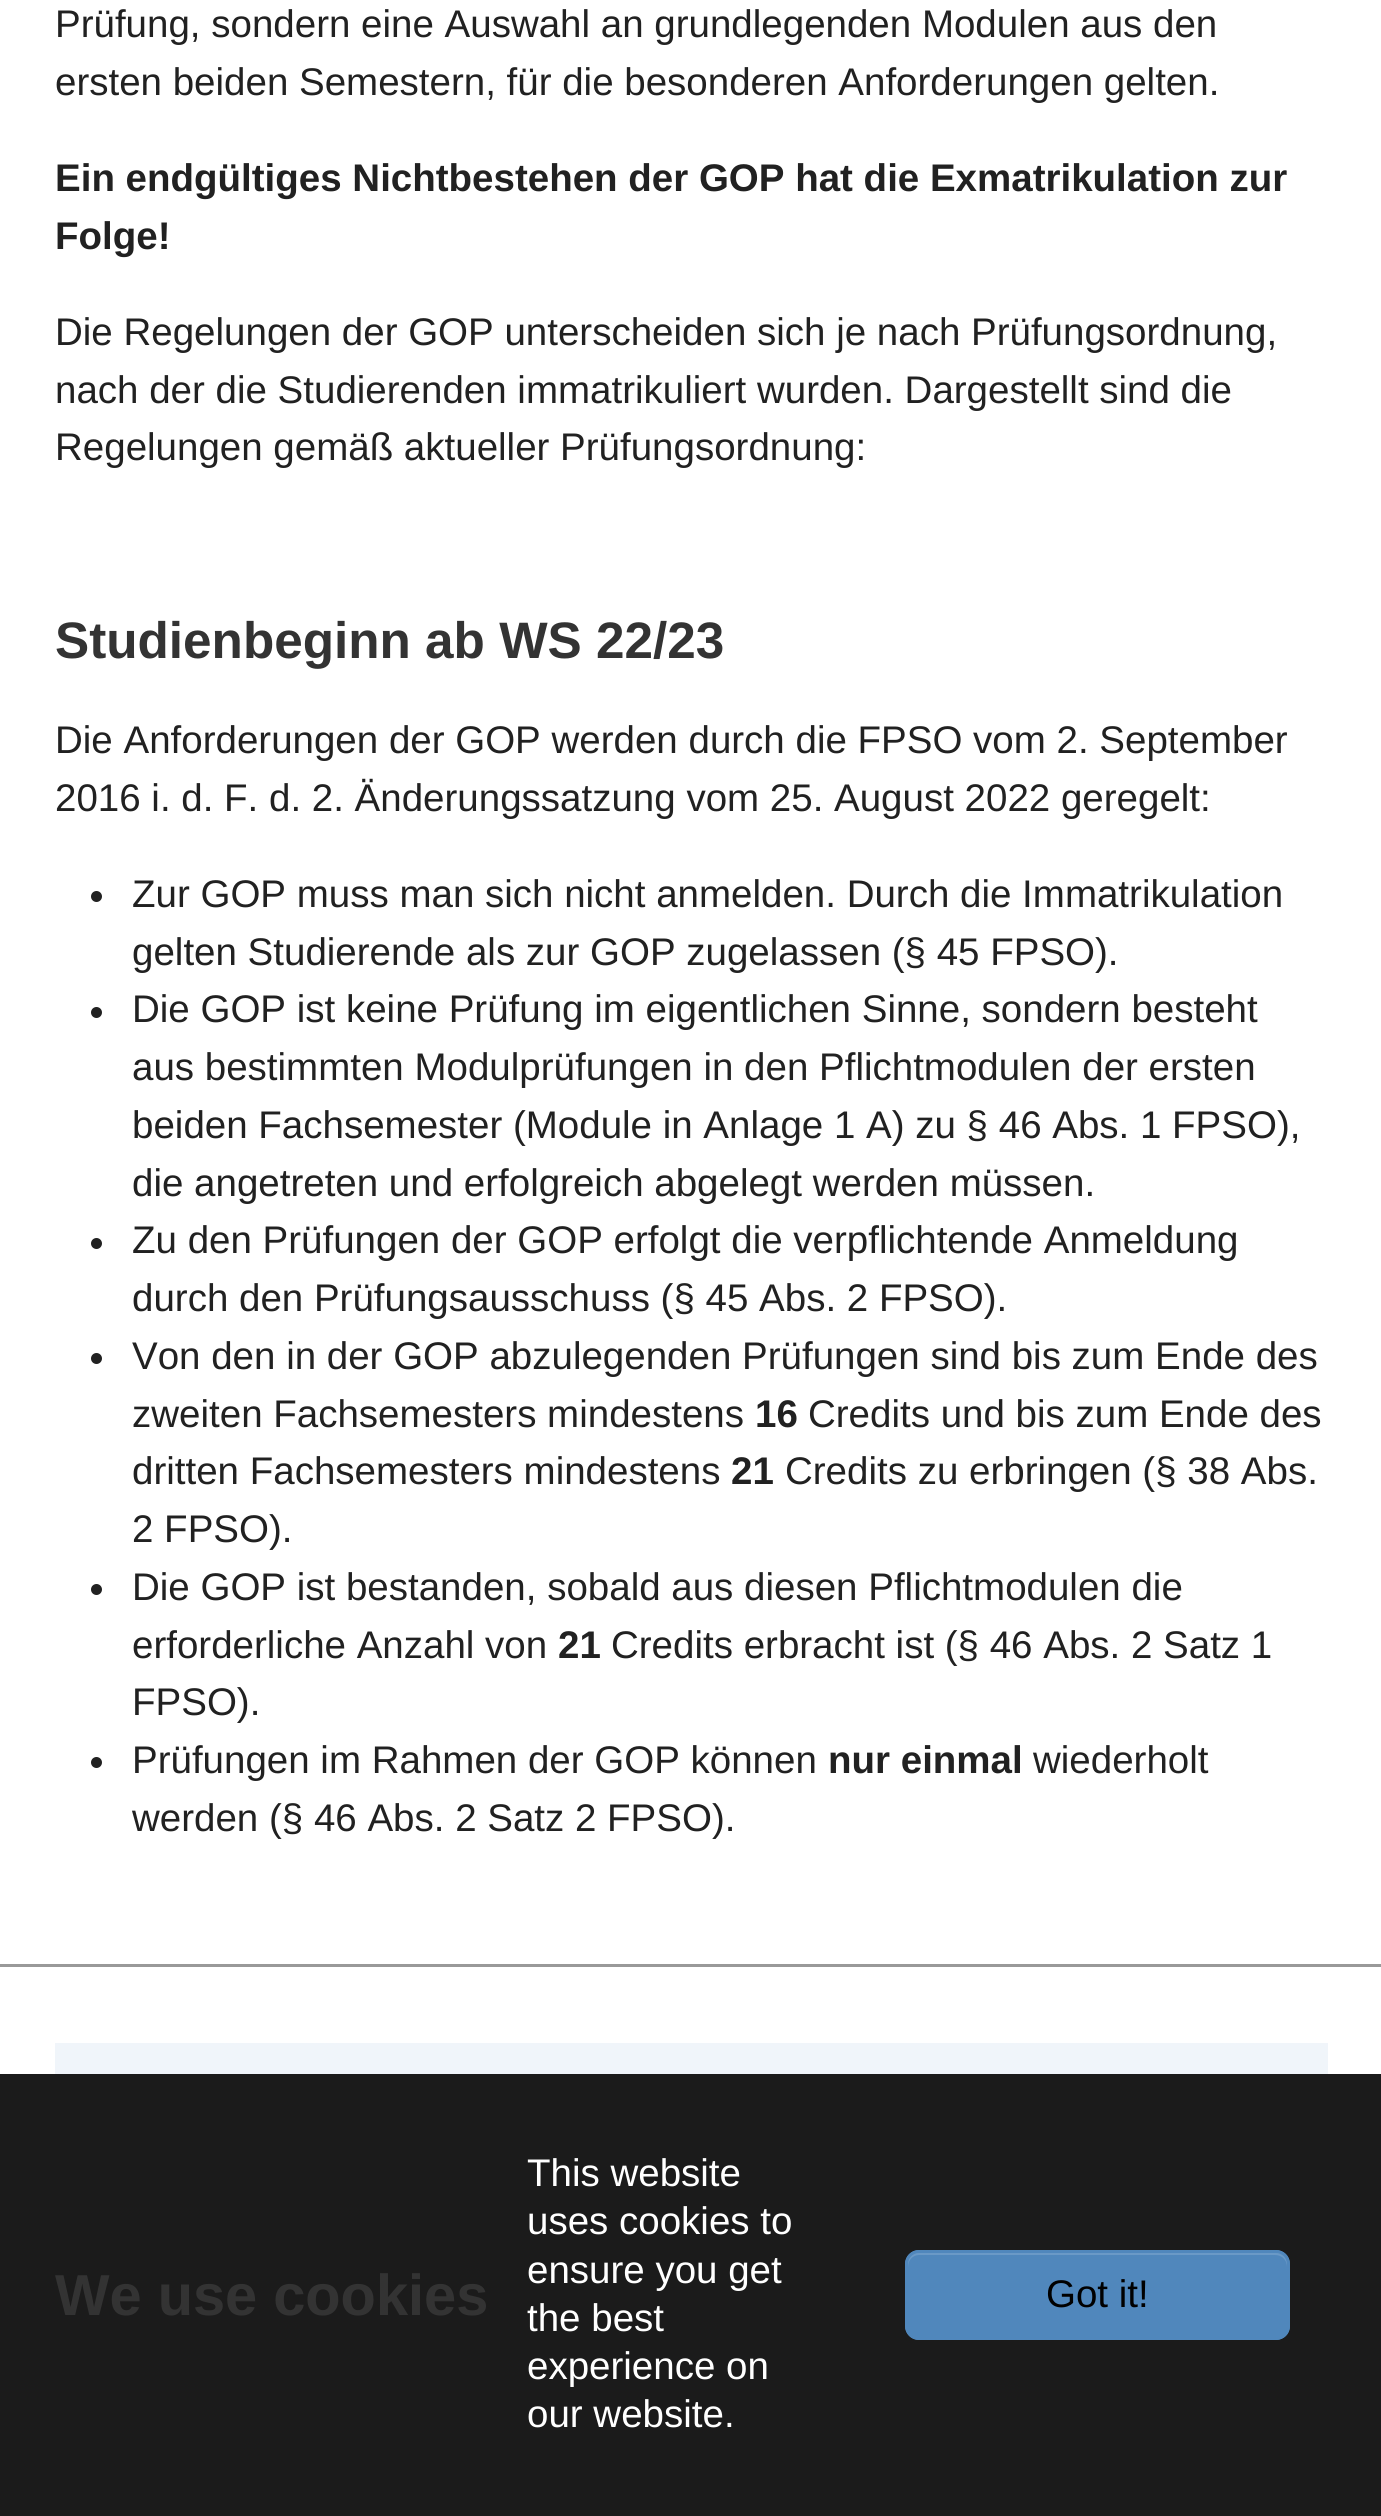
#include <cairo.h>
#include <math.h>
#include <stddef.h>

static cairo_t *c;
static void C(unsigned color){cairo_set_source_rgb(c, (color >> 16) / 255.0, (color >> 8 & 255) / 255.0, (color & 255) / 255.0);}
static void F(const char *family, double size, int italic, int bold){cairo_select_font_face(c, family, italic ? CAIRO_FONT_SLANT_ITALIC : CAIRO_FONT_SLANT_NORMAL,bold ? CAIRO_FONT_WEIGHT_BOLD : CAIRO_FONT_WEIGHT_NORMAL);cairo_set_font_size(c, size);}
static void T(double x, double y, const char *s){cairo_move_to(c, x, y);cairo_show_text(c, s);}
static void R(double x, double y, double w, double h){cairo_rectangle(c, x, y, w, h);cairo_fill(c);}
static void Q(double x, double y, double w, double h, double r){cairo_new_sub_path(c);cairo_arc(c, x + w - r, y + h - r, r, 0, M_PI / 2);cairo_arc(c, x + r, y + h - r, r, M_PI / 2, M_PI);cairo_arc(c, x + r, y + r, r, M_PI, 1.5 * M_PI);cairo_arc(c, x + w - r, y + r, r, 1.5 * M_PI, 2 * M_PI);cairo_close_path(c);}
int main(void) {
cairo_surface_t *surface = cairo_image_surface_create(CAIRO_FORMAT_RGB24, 1381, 2516);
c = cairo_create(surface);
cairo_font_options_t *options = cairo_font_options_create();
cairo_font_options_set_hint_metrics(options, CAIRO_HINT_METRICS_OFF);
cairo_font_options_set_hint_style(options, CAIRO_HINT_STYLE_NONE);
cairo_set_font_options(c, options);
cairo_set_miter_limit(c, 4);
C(0xffffff);
cairo_paint(c);
F("Liberation Sans",38.5,0,0);
C(0x212121);
T(55,37,"Prüfung, sondern eine Auswahl an grundlegenden Modulen aus den");
T(55,95,"ersten beiden Semestern, für die besonderen Anforderungen gelten.");
F("Liberation Sans",38.5,0,1);
T(55,191,"Ein endgültiges Nichtbestehen der GOP hat die Exmatrikulation zur");
T(55,249,"Folge!");
F("Liberation Sans",38.5,0,0);
T(55,345,"Die Regelungen der GOP unterscheiden sich je nach Prüfungsordnung,");
T(55,403,"nach der die Studierenden immatrikuliert wurden. Dargestellt sind die");
T(55,460,"Regelungen gemäß aktueller Prüfungsordnung:");
F("Liberation Sans",51.25,0,1);
C(0x333333);
T(55,658,"Studienbeginn ab WS 22/23");
F("Liberation Sans",38.5,0,0);
C(0x212121);
T(55,753,"Die Anforderungen der GOP werden durch die FPSO vom 2. September");
T(55,811,"2016 i. d. F. d. 2. Änderungssatzung vom 25. August 2022 geregelt:");
cairo_new_path(c);
cairo_arc(c,96.5,896.5,5.5,0,2 * M_PI);
cairo_fill(c);
T(132,907,"Zur GOP muss man sich nicht anmelden. Durch die Immatrikulation");
T(132,965,"gelten Studierende als zur GOP zugelassen (§ 45 FPSO).");
cairo_new_path(c);
cairo_arc(c,96.5,1012.5,5.5,0,2 * M_PI);
cairo_fill(c);
T(132,1022,"Die GOP ist keine Prüfung im eigentlichen Sinne, sondern besteht");
T(132,1080,"aus bestimmten Modulprüfungen in den Pflichtmodulen der ersten");
T(132,1138,"beiden Fachsemester (Module in Anlage 1 A) zu § 46 Abs. 1 FPSO),");
T(132,1196,"die angetreten und erfolgreich abgelegt werden müssen.");
cairo_new_path(c);
cairo_arc(c,96.5,1243.5,5.5,0,2 * M_PI);
cairo_fill(c);
T(132,1253,"Zu den Prüfungen der GOP erfolgt die verpflichtende Anmeldung");
T(132,1311,"durch den Prüfungsausschuss (§ 45 Abs. 2 FPSO).");
cairo_new_path(c);
cairo_arc(c,96.5,1358.5,5.5,0,2 * M_PI);
cairo_fill(c);
T(132,1369,"Von den in der GOP abzulegenden Prüfungen sind bis zum Ende des");
T(132,1427,"zweiten Fachsemesters mindestens");
F("Liberation Sans",38.5,0,1);
T(755,1427,"16");
F("Liberation Sans",38.5,0,0);
T(808,1427,"Credits und bis zum Ende des");
T(132,1484,"dritten Fachsemesters mindestens");
F("Liberation Sans",38.5,0,1);
T(731,1484,"21");
F("Liberation Sans",38.5,0,0);
T(785,1484,"Credits zu erbringen (§ 38 Abs.");
T(132,1542,"2 FPSO).");
cairo_new_path(c);
cairo_arc(c,96.5,1589.5,5.5,0,2 * M_PI);
cairo_fill(c);
T(132,1600,"Die GOP ist bestanden, sobald aus diesen Pflichtmodulen die");
T(132,1658,"erforderliche Anzahl von");
F("Liberation Sans",38.5,0,1);
T(558,1658,"21");
F("Liberation Sans",38.5,0,0);
T(611,1658,"Credits erbracht ist (§ 46 Abs. 2 Satz 1");
T(132,1715,"FPSO).");
cairo_new_path(c);
cairo_arc(c,96.5,1762.5,5.5,0,2 * M_PI);
cairo_fill(c);
T(132,1773,"Prüfungen im Rahmen der GOP können");
F("Liberation Sans",38.5,0,1);
T(828,1773,"nur einmal");
F("Liberation Sans",38.5,0,0);
T(1033,1773,"wiederholt");
T(132,1831,"werden (§ 46 Abs. 2 Satz 2 FPSO).");
C(0x999999);
R(0,1964,1381,3);
C(0xf0f5fa);
R(55,2043,1273,31);
C(0x1b1b1b);
R(0,2074,1381,442);
F("Liberation Sans",57.75,0,1);
C(0x333333);
T(55,2315,"We use cookies");
F("Liberation Sans",38.5,0,0);
C(0xffffff);
T(527,2186,"This website");
T(527,2234,"uses cookies to");
T(527,2283,"ensure you get");
T(527,2331,"the best");
T(527,2379,"experience on");
T(527,2427,"our website.");
C(0x5087bc);
Q(905,2250,385,90,14);
cairo_fill(c);
C(0x6a99c6);
cairo_new_path(c);
cairo_move_to(c,919,2255);
cairo_line_to(c,1275,2255);
cairo_curve_to(c,1282,2255,1287,2260,1287,2267);
cairo_line_to(c,1287,2263);
cairo_curve_to(c,1287,2257,1282,2252,1276,2252);
cairo_line_to(c,919,2252);
cairo_curve_to(c,913,2252,908,2257,908,2263);
cairo_line_to(c,908,2267);
cairo_curve_to(c,908,2260,913,2255,919,2255);
cairo_close_path(c);
cairo_fill(c);
Q(906.5,2251.5,382,87,12.5);
C(0x5087bc);
cairo_set_line_width(c,3);
cairo_stroke(c);
C(0x000000);
T(1046,2307,"Got it!");
cairo_surface_write_to_png(surface, "o.png");
cairo_font_options_destroy(options);
cairo_destroy(c);
cairo_surface_destroy(surface);
return 0;
}
